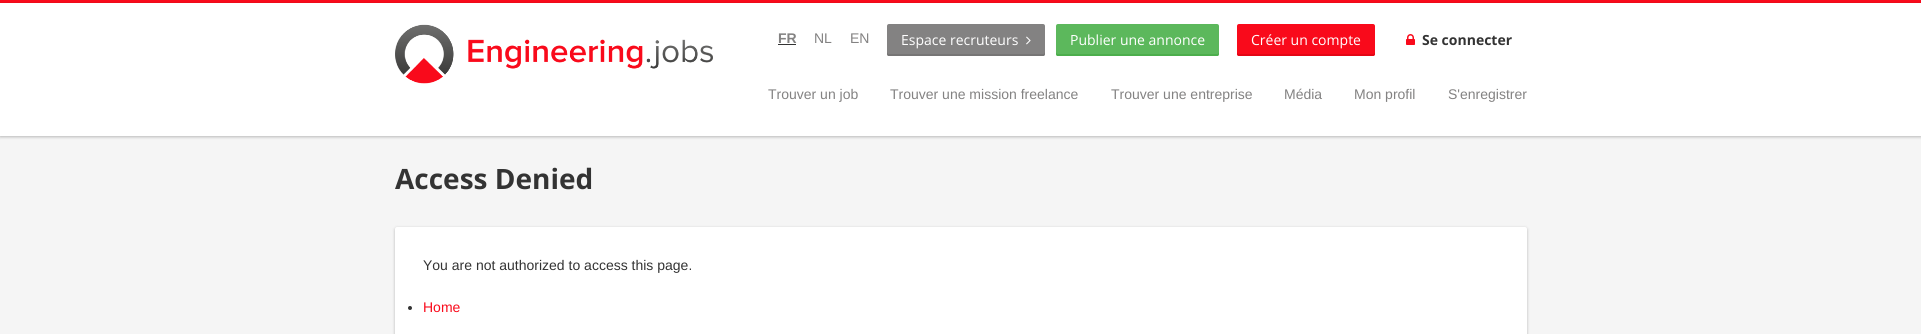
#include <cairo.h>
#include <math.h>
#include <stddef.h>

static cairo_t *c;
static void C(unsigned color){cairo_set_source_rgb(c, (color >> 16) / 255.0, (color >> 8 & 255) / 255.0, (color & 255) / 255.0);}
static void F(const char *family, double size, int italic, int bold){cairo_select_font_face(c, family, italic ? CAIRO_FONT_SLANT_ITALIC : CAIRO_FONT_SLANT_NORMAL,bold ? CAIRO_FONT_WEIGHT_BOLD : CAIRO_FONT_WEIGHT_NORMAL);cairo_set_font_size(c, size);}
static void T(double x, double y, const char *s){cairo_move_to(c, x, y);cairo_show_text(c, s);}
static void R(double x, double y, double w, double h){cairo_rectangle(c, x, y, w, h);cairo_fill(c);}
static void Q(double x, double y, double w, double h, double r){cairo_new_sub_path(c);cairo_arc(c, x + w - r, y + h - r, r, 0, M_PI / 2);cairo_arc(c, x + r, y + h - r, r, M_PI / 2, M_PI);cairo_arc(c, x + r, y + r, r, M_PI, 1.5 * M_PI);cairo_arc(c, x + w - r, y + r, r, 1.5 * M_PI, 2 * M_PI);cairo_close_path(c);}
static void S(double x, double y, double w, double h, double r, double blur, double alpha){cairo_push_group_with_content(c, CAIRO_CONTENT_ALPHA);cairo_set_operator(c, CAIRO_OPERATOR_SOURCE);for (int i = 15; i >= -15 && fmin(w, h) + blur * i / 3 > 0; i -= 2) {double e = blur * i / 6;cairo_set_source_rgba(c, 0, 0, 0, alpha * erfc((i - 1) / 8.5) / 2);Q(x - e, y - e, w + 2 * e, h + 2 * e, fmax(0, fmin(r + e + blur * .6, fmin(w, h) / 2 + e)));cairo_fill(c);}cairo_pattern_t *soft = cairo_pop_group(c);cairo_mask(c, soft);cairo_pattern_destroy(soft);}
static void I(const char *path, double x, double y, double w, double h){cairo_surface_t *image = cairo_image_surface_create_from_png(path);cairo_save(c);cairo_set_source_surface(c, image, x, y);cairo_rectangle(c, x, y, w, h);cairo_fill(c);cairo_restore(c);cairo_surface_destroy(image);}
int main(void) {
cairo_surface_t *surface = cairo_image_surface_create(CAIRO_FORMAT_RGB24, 1921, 334);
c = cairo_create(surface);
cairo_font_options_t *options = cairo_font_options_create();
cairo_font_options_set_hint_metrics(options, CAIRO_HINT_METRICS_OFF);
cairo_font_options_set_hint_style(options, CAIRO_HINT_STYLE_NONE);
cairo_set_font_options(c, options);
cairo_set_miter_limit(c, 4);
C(0xf5f5f5);
cairo_paint(c);
C(0xf90a1b);
R(0,0,1921,3);
C(0x000000);
S(0,4,1921,133,0,1.5,.25);
C(0xffffff);
R(0,3,1921,133);
I("1.png",395,24,318,60);
F("Liberation Sans",14,0,1);
C(0x838282);
T(778,43,"FR");
C(0x333333);
R(778,44,18,1);
F("Liberation Sans",14,0,0);
C(0x838282);
T(814,43,"NL");
T(850,43,"EN");
Q(887,24,158,32,2);
cairo_fill(c);
C(0x767575);
cairo_new_path(c);
cairo_move_to(c,887,52);
cairo_curve_to(c,887,54,887,56,889,56);
cairo_line_to(c,1043,56);
cairo_curve_to(c,1045,56,1045,54,1045,52);
cairo_curve_to(c,1045,53,1044,54,1043,54);
cairo_line_to(c,889,54);
cairo_curve_to(c,888,54,887,53,887,52);
cairo_close_path(c);
cairo_fill(c);
F("Open Sans",14,0,0);
C(0xffffff);
T(901,45,"Espace recruteurs");
I("2.png",1026,36,5,9);
C(0x5cb85c);
Q(1056,24,163,32,2);
cairo_fill(c);
C(0x4cae4c);
cairo_new_path(c);
cairo_move_to(c,1056,52);
cairo_curve_to(c,1056,54,1056,56,1058,56);
cairo_line_to(c,1217,56);
cairo_curve_to(c,1219,56,1219,54,1219,52);
cairo_curve_to(c,1219,53,1218,54,1217,54);
cairo_line_to(c,1058,54);
cairo_curve_to(c,1057,54,1056,53,1056,52);
cairo_close_path(c);
cairo_fill(c);
C(0xffffff);
T(1070,45,"Publier une annonce");
C(0xf90a1b);
Q(1237,24,138,32,2);
cairo_fill(c);
C(0xe40615);
cairo_new_path(c);
cairo_move_to(c,1237,52);
cairo_line_to(c,1237,54);
cairo_curve_to(c,1237,55,1238,56,1239,56);
cairo_line_to(c,1373,56);
cairo_curve_to(c,1374,56,1375,55,1375,54);
cairo_line_to(c,1375,52);
cairo_curve_to(c,1375,53,1374,54,1373,54);
cairo_line_to(c,1239,54);
cairo_curve_to(c,1238,54,1237,53,1237,52);
cairo_close_path(c);
cairo_fill(c);
C(0xffffff);
T(1251,45,"Créer un compte");
I("3.png",1406,34,9,11);
F("Open Sans",14,0,1);
C(0x333333);
T(1422,45,"Se connecter");
F("Liberation Sans",14,0,0);
C(0x838282);
T(768,99,"Trouver un job");
T(890,99,"Trouver une mission freelance");
T(1111,99,"Trouver une entreprise");
T(1284,99,"Média");
T(1354,99,"Mon profil");
T(1448,99,"S'enregistrer");
F("Open Sans",28,0,1);
C(0x333333);
T(395,189,"Access Denied");
C(0x000000);
S(395,228,1132,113,2,1.5,.25);
C(0xffffff);
Q(395,227,1132,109,2);
cairo_fill(c);
F("Liberation Sans",14,0,0);
C(0x333333);
T(423,270,"You are not authorized to access this page.");
cairo_new_path(c);
cairo_arc(c,410,308,2,0,2 * M_PI);
cairo_fill(c);
C(0xf90a1b);
T(423,312,"Home");
cairo_surface_write_to_png(surface, "o.png");
cairo_font_options_destroy(options);
cairo_destroy(c);
cairo_surface_destroy(surface);
return 0;
}
